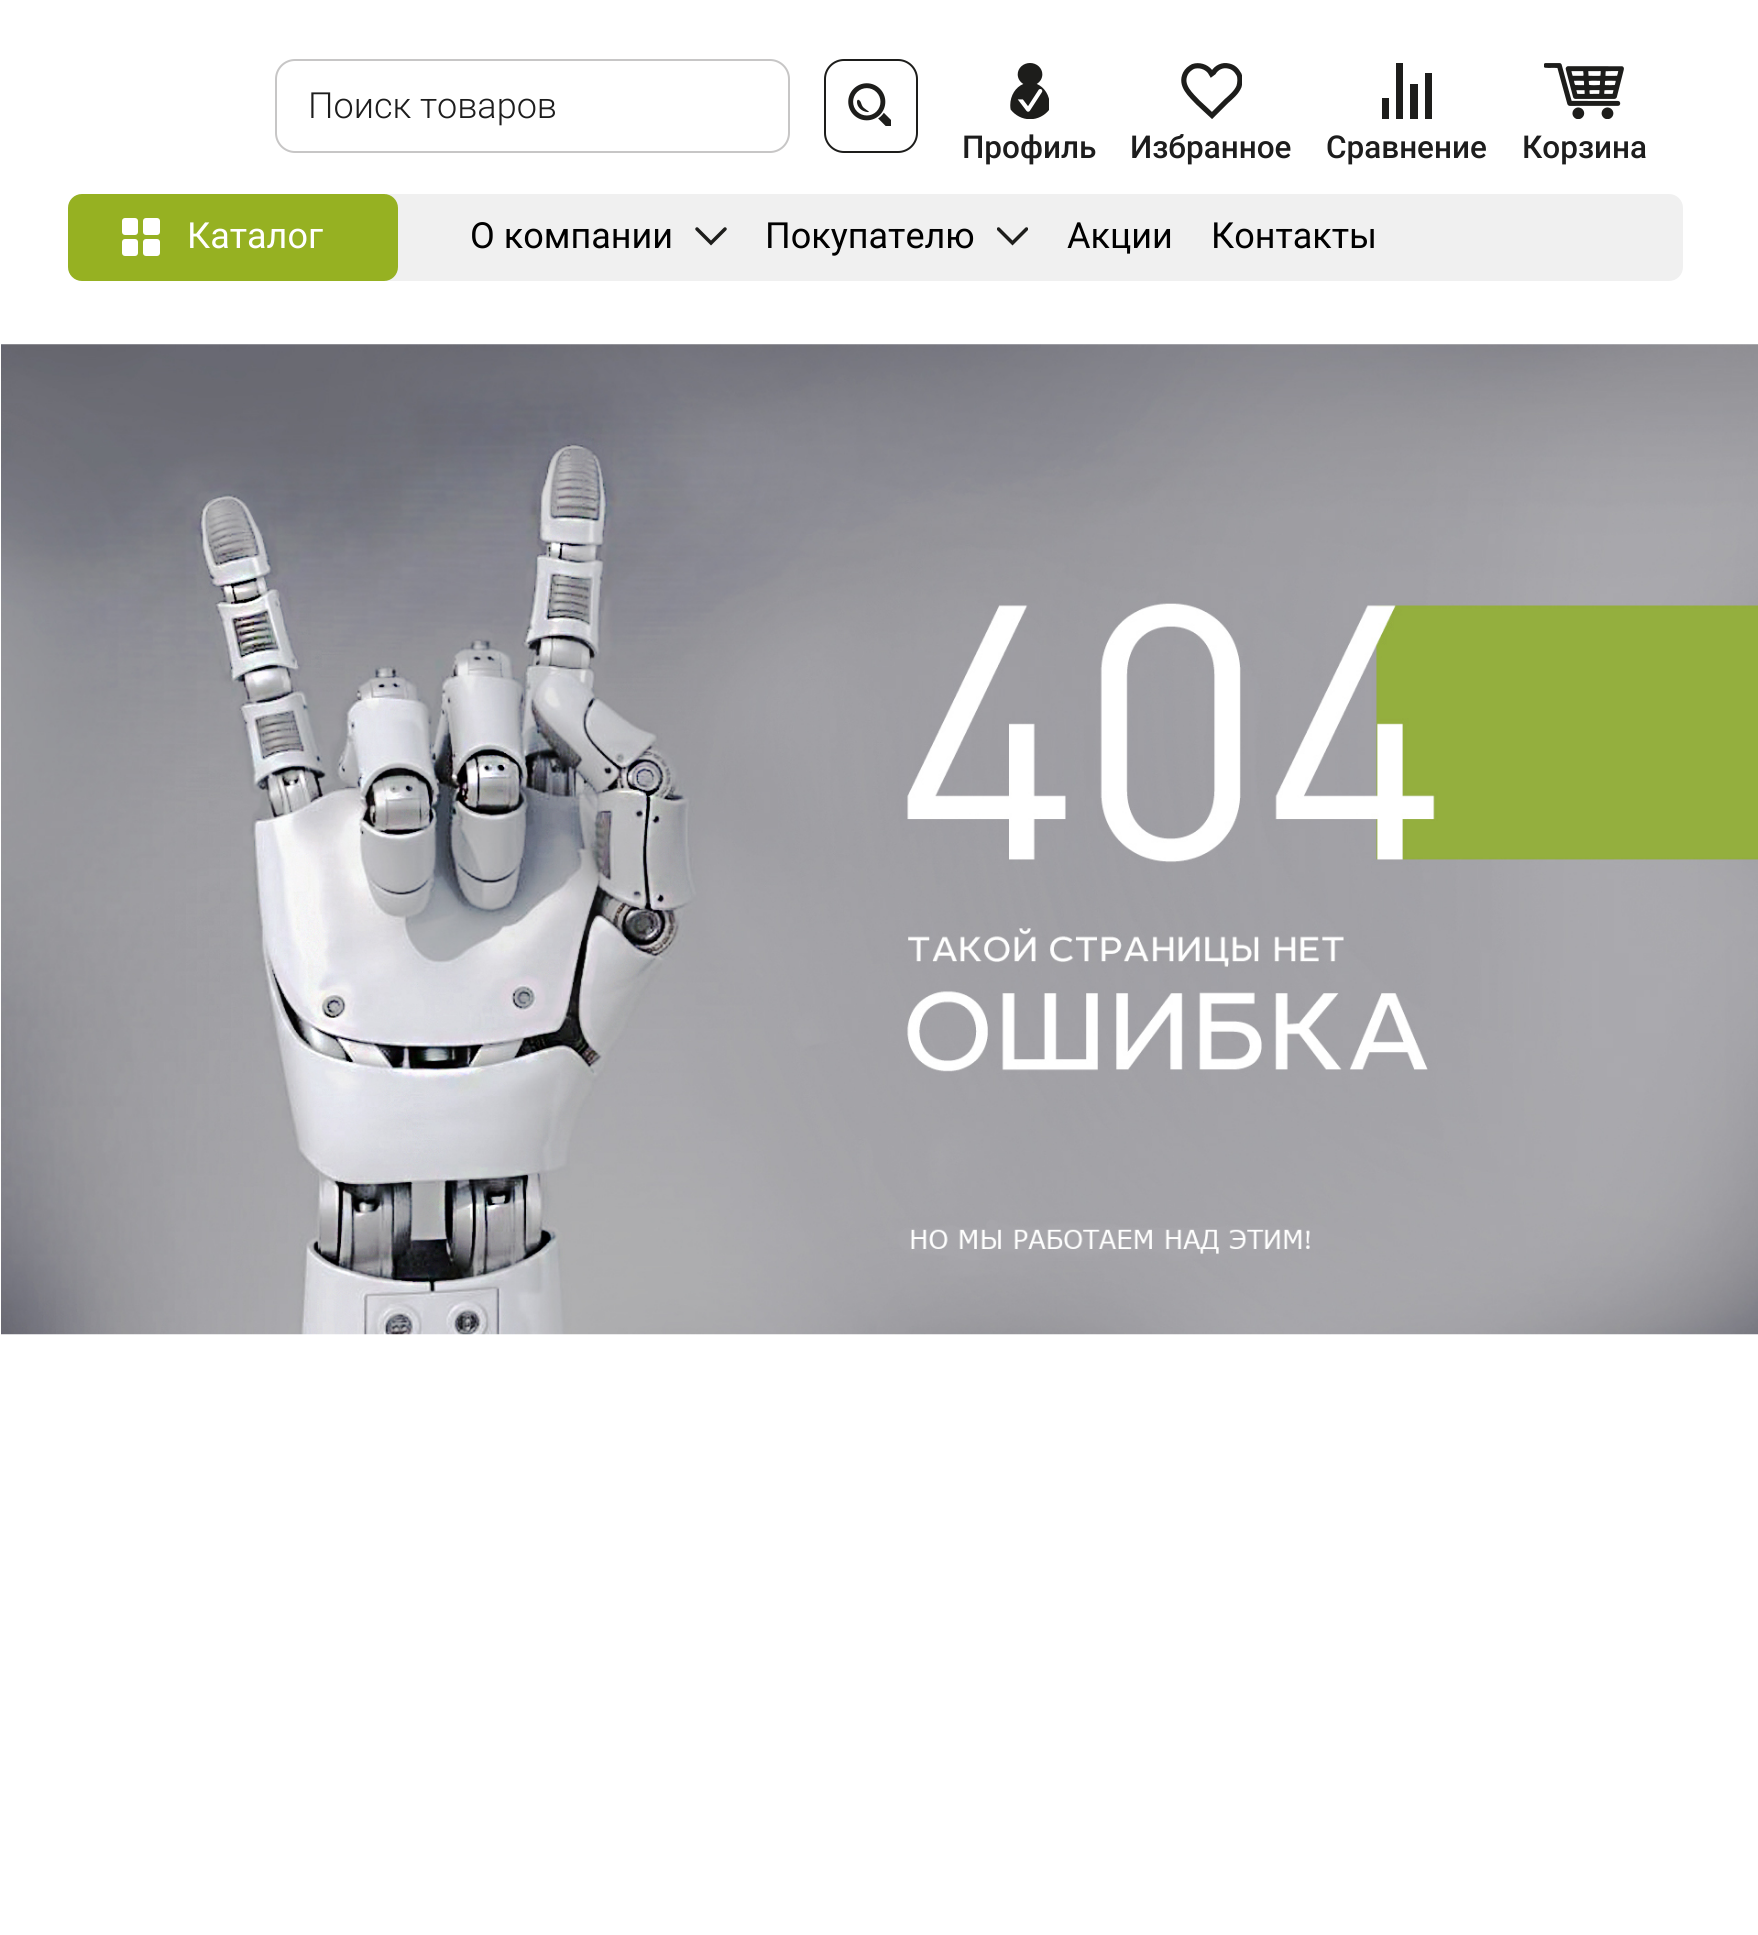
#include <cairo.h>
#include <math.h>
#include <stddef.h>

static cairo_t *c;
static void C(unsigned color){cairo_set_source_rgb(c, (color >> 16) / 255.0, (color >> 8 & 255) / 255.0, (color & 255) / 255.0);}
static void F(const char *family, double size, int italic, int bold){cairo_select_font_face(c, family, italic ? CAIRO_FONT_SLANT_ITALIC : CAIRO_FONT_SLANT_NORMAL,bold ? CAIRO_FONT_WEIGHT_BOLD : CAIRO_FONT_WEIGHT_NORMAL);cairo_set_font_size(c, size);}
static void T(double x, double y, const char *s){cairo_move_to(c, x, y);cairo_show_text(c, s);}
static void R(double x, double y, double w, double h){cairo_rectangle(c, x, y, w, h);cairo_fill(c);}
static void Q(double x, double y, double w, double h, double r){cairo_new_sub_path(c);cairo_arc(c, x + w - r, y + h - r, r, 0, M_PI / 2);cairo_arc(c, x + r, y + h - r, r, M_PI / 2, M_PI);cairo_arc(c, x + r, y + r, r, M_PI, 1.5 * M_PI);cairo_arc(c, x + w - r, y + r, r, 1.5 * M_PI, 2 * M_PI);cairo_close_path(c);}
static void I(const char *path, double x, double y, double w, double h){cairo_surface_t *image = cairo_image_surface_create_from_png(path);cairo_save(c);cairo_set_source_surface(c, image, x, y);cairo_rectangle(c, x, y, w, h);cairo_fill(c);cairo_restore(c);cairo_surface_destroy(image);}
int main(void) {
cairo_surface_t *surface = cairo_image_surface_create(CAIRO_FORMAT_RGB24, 1758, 1935);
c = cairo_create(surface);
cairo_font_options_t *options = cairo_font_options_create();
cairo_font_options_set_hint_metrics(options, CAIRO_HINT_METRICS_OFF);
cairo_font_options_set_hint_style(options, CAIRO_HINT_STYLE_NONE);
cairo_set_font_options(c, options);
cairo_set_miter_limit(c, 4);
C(0xffffff);
cairo_paint(c);
Q(276,60,513,92,19);
C(0xc7c6c6);
cairo_stroke(c);
F("Roboto Light",36,0,0);
C(0x1d1d1d);
T(308,118,"Поиск товаров");
Q(825,60,92,92,19);
C(0x1d1d1b);
cairo_stroke(c);
I("1.png",848,83,43,43);
I("2.png",1010,63,39,56);
F("Roboto Medium",31.5,0,0);
C(0x1d1d1d);
T(962,158,"Профиль");
cairo_save(c);
cairo_rectangle(c,1181,63,61,56);
cairo_clip(c);
cairo_new_path(c);
cairo_move_to(c,1212,115.5);
cairo_line_to(c,1198,102.5);
cairo_curve_to(c,1191,95,1179.5,85.5,1185.5,73.5);
cairo_curve_to(c,1187,70.5,1190,68,1193,66.5);
cairo_curve_to(c,1199,64.5,1206,66.5,1210,71.5);
cairo_line_to(c,1211.5,74);
cairo_line_to(c,1213.5,72.5);
cairo_curve_to(c,1216.5,67.5,1222.5,64.5,1228.5,66);
cairo_curve_to(c,1233.5,67,1236.5,70,1239,74.5);
cairo_curve_to(c,1240.5,78,1240,83,1239,86.5);
cairo_curve_to(c,1236.5,92.5,1231,97,1226.5,101);
cairo_close_path(c);
C(0x1d1d1b);
cairo_set_line_width(c,5.2);
cairo_stroke(c);
cairo_restore(c);
T(1130,158,"Избранное");
C(0x1d1d1b);
R(1425,73,7,46);
R(1410,84,8,35);
R(1396,63,7,56);
R(1382,98,7,21);
C(0x1d1d1d);
T(1326,158,"Сравнение");
I("3.png",1544,63,80,56);
T(1522,158,"Корзина");
C(0xf0f0f0);
Q(68,194,1615,87,14);
cairo_fill(c);
C(0x96b122);
Q(68,194,330,87,14);
cairo_fill(c);
C(0xffffff);
Q(122,218,16,17,3);
cairo_fill(c);
Q(122,239,16,17,3);
cairo_fill(c);
Q(143,218,17,17,3);
cairo_fill(c);
Q(143,239,17,17,3);
cairo_fill(c);
F("Roboto",36,0,0);
T(187,248,"Каталог");
C(0x000000);
T(470,248,"О компании");
cairo_new_path(c);
cairo_move_to(c,725,229);
cairo_line_to(c,711,243);
cairo_line_to(c,697,229);
C(0x1e1e1c);
cairo_set_line_width(c,3.5);
cairo_set_line_cap(c,CAIRO_LINE_CAP_ROUND);
cairo_stroke(c);
C(0x000000);
T(765,248,"Покупателю");
cairo_save(c);
cairo_rectangle(c,997,218,31,36);
cairo_clip(c);
cairo_new_path(c);
cairo_move_to(c,1026.5,229);
cairo_line_to(c,1012.5,243);
cairo_line_to(c,998.5,229);
C(0x1e1e1c);
cairo_stroke(c);
cairo_restore(c);
T(1067,248,"Акции");
T(1211,248,"Контакты");
I("4.png",1,344,1757,991);
cairo_surface_write_to_png(surface, "o.png");
cairo_font_options_destroy(options);
cairo_destroy(c);
cairo_surface_destroy(surface);
return 0;
}
